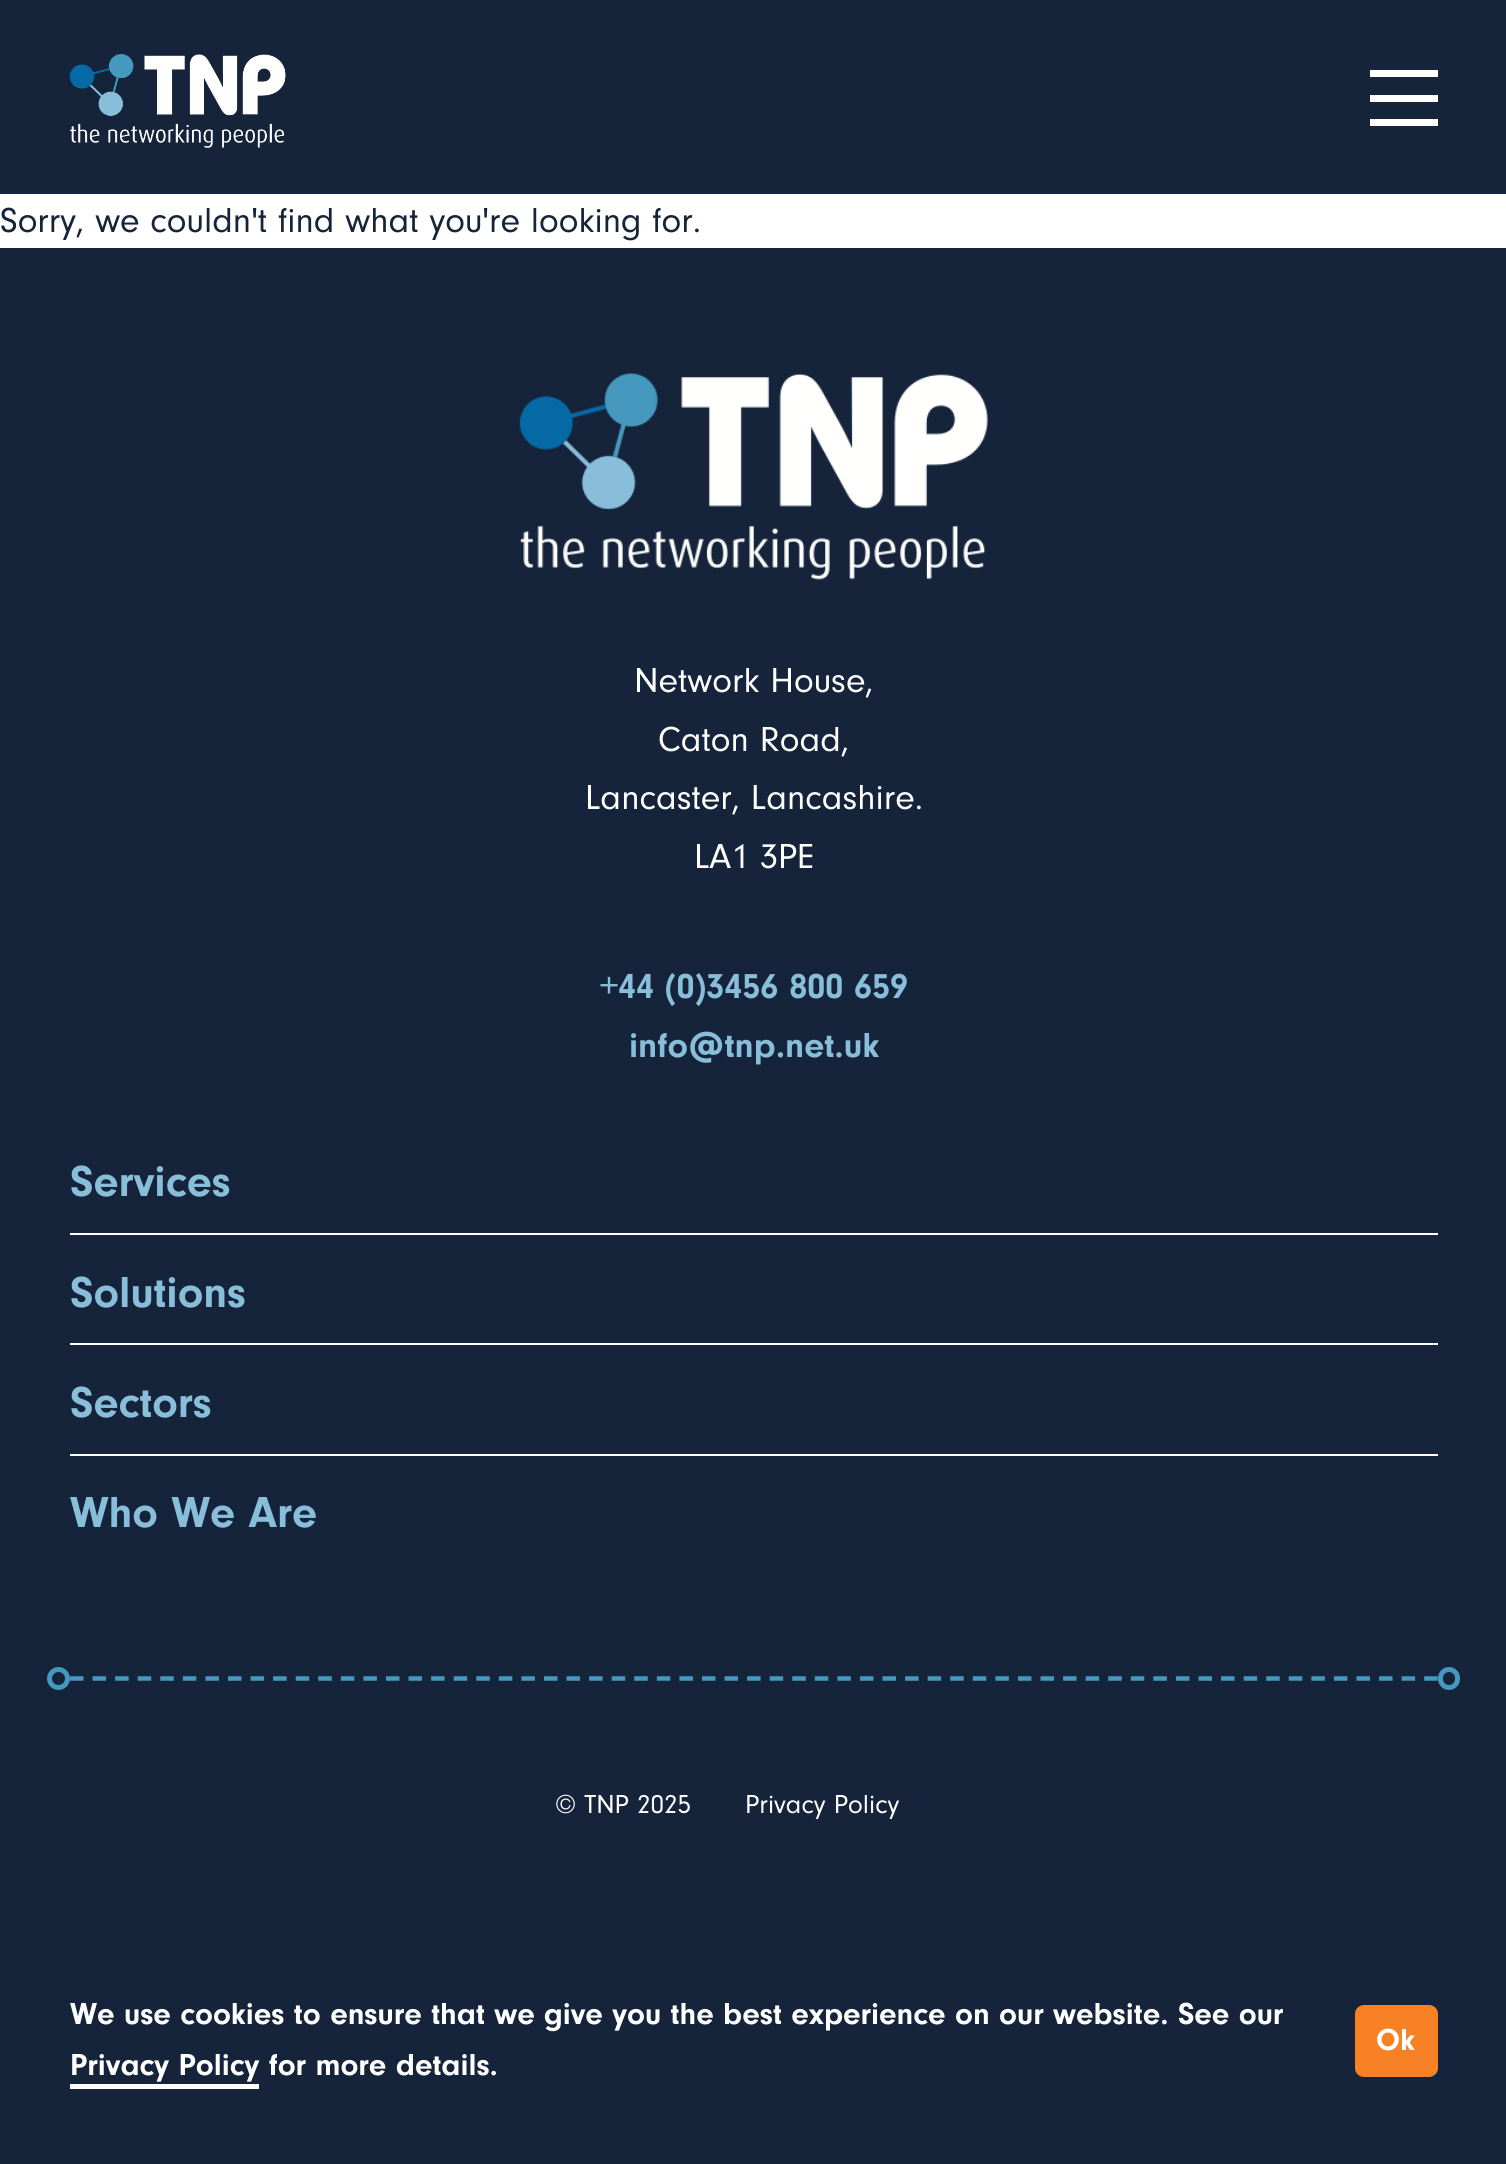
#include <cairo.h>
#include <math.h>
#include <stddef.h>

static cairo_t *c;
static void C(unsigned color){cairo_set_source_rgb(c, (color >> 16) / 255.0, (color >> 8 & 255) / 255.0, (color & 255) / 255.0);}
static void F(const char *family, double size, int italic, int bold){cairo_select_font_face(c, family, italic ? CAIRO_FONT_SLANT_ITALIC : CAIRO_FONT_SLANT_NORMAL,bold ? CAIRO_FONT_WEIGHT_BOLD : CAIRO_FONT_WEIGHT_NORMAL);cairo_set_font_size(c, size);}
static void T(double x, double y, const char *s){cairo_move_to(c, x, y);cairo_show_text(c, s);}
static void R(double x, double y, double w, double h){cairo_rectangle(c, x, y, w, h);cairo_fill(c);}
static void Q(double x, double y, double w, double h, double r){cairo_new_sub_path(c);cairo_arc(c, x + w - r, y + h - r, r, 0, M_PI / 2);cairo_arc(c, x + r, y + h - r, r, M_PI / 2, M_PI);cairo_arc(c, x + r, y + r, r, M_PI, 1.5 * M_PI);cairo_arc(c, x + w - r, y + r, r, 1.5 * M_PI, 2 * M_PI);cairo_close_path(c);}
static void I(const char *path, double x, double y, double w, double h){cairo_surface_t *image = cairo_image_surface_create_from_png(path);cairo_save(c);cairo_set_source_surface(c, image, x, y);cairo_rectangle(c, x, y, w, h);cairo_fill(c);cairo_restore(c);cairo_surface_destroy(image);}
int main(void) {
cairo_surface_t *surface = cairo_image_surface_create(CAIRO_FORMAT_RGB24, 1506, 2164);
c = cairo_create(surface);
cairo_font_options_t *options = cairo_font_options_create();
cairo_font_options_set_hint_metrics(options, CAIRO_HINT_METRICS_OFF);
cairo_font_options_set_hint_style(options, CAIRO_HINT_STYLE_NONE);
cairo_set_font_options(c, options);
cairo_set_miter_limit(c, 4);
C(0xffffff);
cairo_paint(c);
C(0x15243a);
R(0,0,1506,194);
I("1.png",69,54,217,94);
C(0xffffff);
R(1370,95,68,7);
R(1370,70,68,7);
R(1370,119,68,7);
F("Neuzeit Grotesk",36,0,0);
C(0x15243a);
T(0,232,"Sorry, we couldn't find what you're looking for.");
R(0,248,1506,1916);
I("2.png",519,373,469,207);
C(0xffffff);
T(634,692,"Network House,");
T(658,751,"Caton Road,");
T(585,809,"Lancaster, Lancashire.");
T(694,868,"LA1 3PE");
F("Neuzeit Grotesk",36,0,1);
C(0x88bed9);
T(600,998,"+44 (0)3456 800 659");
T(629,1057,"info@tnp.net.uk");
C(0xffffff);
R(70,1233,1368,2);
F("Neuzeit Grotesk",45,0,1);
C(0x88bed9);
T(70,1196,"Services");
C(0xffffff);
R(70,1343,1368,2);
C(0x88bed9);
T(70,1307,"Solutions");
C(0xffffff);
R(70,1454,1368,2);
C(0x88bed9);
T(70,1417,"Sectors");
T(70,1527,"Who We Are");
cairo_new_path(c);
cairo_move_to(c,70,1678.5);
cairo_line_to(c,1438,1678.5);
C(0x4598be);
cairo_set_line_width(c,4.5);
cairo_set_dash(c,(double[]){13.5,9.07},2,0);
cairo_stroke(c);
cairo_arc(c,58.5,1678.5,9,0,2 * M_PI);
cairo_set_line_width(c,5);
cairo_set_dash(c,NULL,0,0);
cairo_stroke(c);
Q(1440.5,1669.5,17,18,8.5);
cairo_stroke(c);
F("Neuzeit Grotesk",27,0,0);
C(0xffffff);
T(555,1813,"© TNP 2025");
T(745,1813,"Privacy Policy");
F("Neuzeit Grotesk",31.5,0,1);
T(70,2024,"We use cookies to ensure that we give you the best experience on our website. See our");
T(70,2075,"Privacy Policy for more details.");
R(70,2084,189,5);
C(0xf88125);
Q(1357.5,2007.5,78,67,6.5);
cairo_fill_preserve(c);
cairo_stroke(c);
C(0xffffff);
T(1376,2050,"Ok");
cairo_surface_write_to_png(surface, "o.png");
cairo_font_options_destroy(options);
cairo_destroy(c);
cairo_surface_destroy(surface);
return 0;
}
